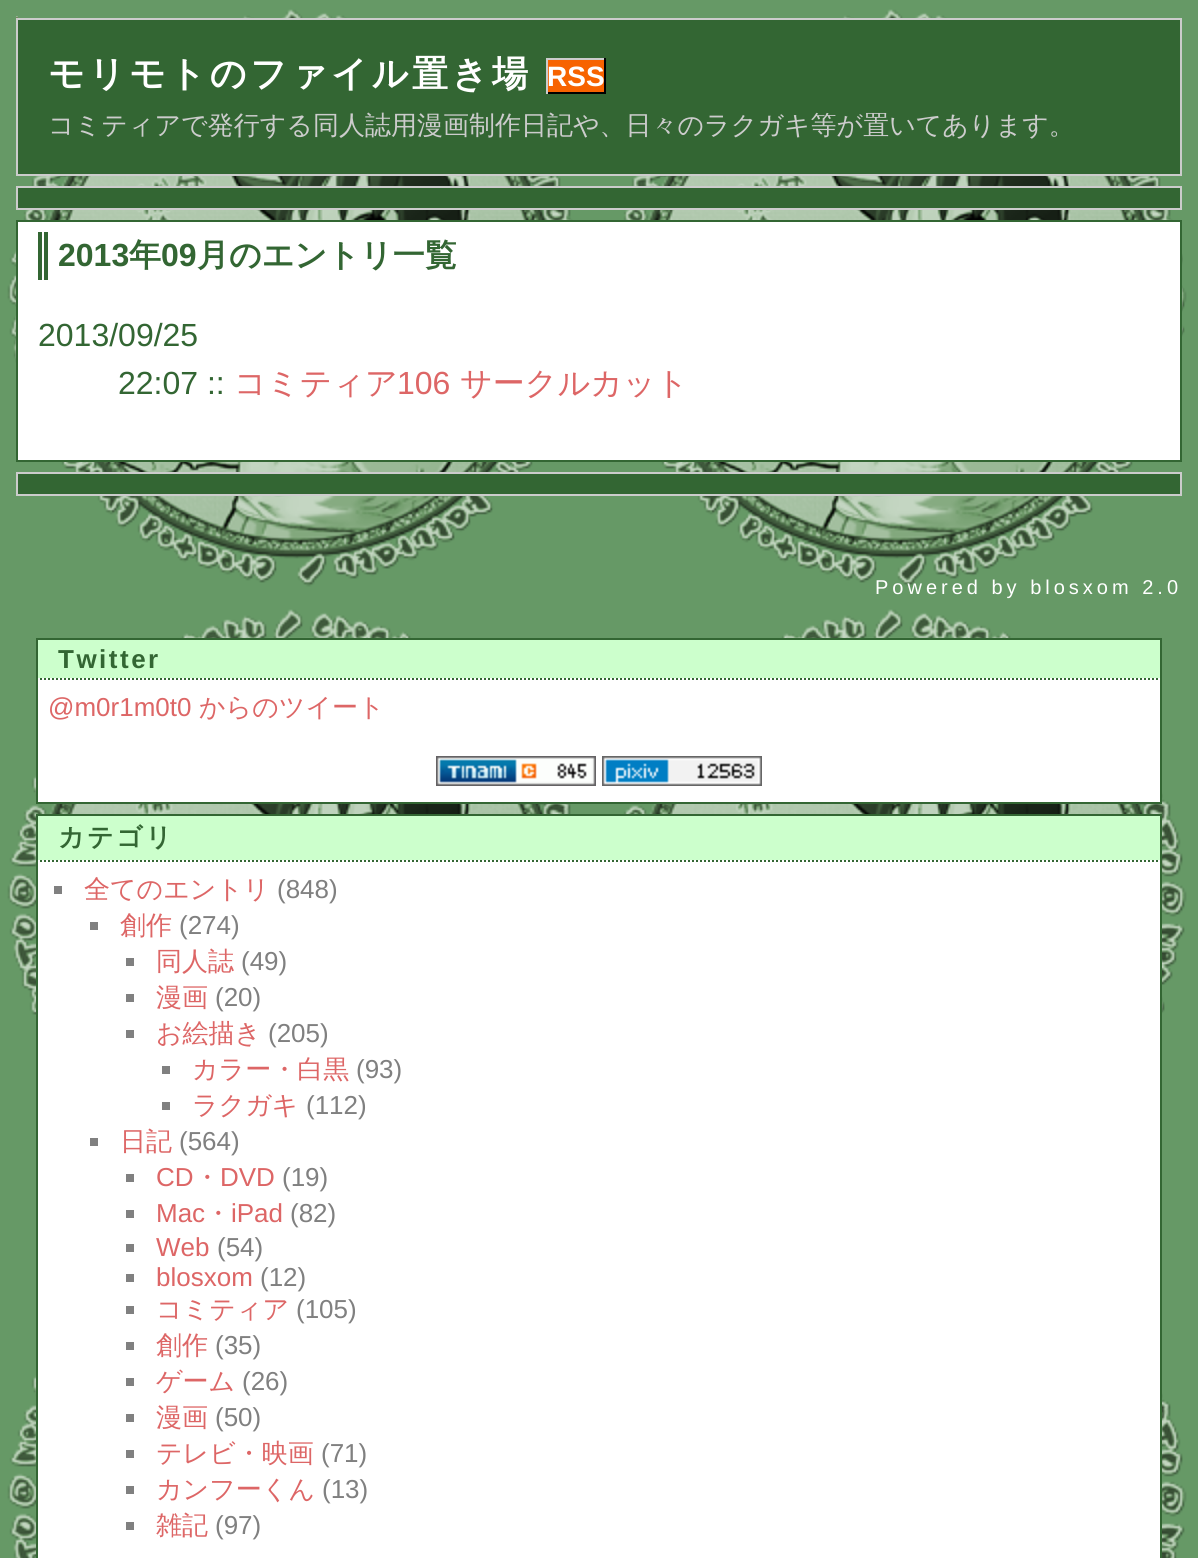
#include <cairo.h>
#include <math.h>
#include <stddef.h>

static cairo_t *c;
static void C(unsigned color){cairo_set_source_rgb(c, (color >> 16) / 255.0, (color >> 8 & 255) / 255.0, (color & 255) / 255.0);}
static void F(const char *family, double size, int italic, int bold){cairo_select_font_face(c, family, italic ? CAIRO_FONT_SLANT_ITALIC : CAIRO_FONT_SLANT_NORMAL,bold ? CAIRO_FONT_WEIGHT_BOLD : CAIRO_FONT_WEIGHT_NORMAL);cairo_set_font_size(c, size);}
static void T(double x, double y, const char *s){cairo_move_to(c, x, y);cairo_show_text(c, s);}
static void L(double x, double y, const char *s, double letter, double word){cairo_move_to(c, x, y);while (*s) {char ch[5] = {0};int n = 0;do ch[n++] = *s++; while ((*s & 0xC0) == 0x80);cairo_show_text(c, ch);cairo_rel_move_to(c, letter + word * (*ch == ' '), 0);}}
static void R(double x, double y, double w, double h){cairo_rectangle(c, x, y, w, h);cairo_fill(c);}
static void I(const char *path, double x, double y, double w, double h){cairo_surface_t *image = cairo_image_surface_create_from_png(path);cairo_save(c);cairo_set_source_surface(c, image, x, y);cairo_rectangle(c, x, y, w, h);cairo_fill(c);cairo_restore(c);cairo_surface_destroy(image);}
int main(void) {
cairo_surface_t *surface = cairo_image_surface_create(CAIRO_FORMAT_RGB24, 1198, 1558);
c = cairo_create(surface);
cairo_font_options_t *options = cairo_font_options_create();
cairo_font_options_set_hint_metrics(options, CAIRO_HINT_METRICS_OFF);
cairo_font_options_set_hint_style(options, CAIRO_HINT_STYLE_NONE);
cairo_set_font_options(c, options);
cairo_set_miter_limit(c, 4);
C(0x669966);
cairo_paint(c);
I("1.png",7,9,1180,1549);
I("2.png",16,16,2,2);
C(0x336633);
cairo_rectangle(c,17,19,1164,156);
cairo_fill_preserve(c);
C(0xcccccc);
cairo_stroke(c);
F("WenQuanYi Zen Hei",36,0,1);
C(0xffffff);
L(48,86,"モリモトのファイル置き場",3.6,0);
C(0xf76300);
R(548,60,56,32);
F("Liberation Sans",28,0,1);
C(0xffffff);
T(547,86,"RSS");
C(0xcccccc);
R(546,58,60,2);
C(0x000000);
R(604,58,2,36);
R(546,92,60,2);
C(0xcccccc);
R(546,58,2,36);
F("WenQuanYi Zen Hei Medium",26,0,0);
T(48,134,"コミティアで発行する同人誌用漫画制作日記や、日々のラクガキ等が置いてあります。");
C(0x336633);
cairo_rectangle(c,17,187,1164,22);
cairo_fill_preserve(c);
C(0xcccccc);
cairo_stroke(c);
C(0xffffff);
cairo_rectangle(c,17,221,1164,240);
cairo_fill_preserve(c);
C(0x336633);
cairo_stroke(c);
R(38,232,4,48);
R(44,232,4,48);
F("Liberation Sans",32,0,1);
T(58,266,"2013");
F("WenQuanYi Zen Hei",32,0,1);
T(129,266,"年");
F("Liberation Sans",32,0,1);
T(161,266,"09");
F("WenQuanYi Zen Hei",32,0,1);
T(197,266,"月のエントリ一覧");
F("Liberation Sans",32,0,0);
T(38,346,"2013/09/25");
T(118,394,"22:07 ::");
F("WenQuanYi Zen Hei Medium",32,0,0);
C(0xdd6666);
T(234,394,"コミティア");
F("Liberation Sans",32,0,0);
T(397,394,"106");
F("WenQuanYi Zen Hei Medium",32,0,0);
T(460,394,"サークルカット");
C(0x336633);
cairo_rectangle(c,17,473,1164,22);
cairo_fill_preserve(c);
C(0xcccccc);
cairo_stroke(c);
F("Liberation Sans",20,0,0);
C(0xffffff);
L(875,594,"Powered by blosxom 2.0",4,0);
C(0xccffcc);
R(38,640,1122,38);
C(0x336633);
R(36,638,1126,2);
R(1160,638,2,40);
R(36,638,2,40);
F("Liberation Sans",26,0,1);
L(58,668,"Twitter",2.5,0);
C(0xffffff);
R(38,678,1122,124);
cairo_new_path(c);
cairo_move_to(c,36,679);
cairo_line_to(c,1162,679);
C(0x336633);
cairo_set_dash(c,(double[]){2,2},2,0);
cairo_stroke(c);
R(1160,678,2,126);
R(36,802,1126,2);
R(36,678,2,126);
F("Liberation Sans",26,0,0);
C(0xdd6666);
T(48,716,"@m0r1m0t0");
F("WenQuanYi Zen Hei Medium",26,0,0);
T(199,716,"からのツイート");
I("3.png",436,756,160,30);
I("4.png",602,756,160,30);
C(0xccffcc);
R(38,816,1122,44);
C(0x336633);
R(36,814,1126,2);
R(1160,814,2,46);
R(36,814,2,46);
F("WenQuanYi Zen Hei",26,0,1);
L(58,846,"カテゴリ",2.5,0);
C(0xffffff);
R(38,860,1122,698);
cairo_new_path(c);
cairo_move_to(c,36,861);
cairo_line_to(c,1162,861);
C(0x336633);
cairo_stroke(c);
R(1160,860,2,698);
R(36,860,2,698);
C(0x808080);
R(54,886,8,8);
F("WenQuanYi Zen Hei Medium",26,0,0);
C(0xdd6666);
T(84,898,"全てのエントリ");
F("Liberation Sans",26,0,0);
C(0x808080);
T(277,898,"(848)");
R(90,922,8,8);
F("WenQuanYi Zen Hei Medium",26,0,0);
C(0xdd6666);
T(120,934,"創作");
F("Liberation Sans",26,0,0);
C(0x808080);
T(179,934,"(274)");
R(126,958,8,8);
F("WenQuanYi Zen Hei Medium",26,0,0);
C(0xdd6666);
T(156,970,"同人誌");
F("Liberation Sans",26,0,0);
C(0x808080);
T(241,970,"(49)");
R(126,994,8,8);
F("WenQuanYi Zen Hei Medium",26,0,0);
C(0xdd6666);
T(156,1006,"漫画");
F("Liberation Sans",26,0,0);
C(0x808080);
T(215,1006,"(20)");
R(126,1030,8,8);
F("WenQuanYi Zen Hei Medium",26,0,0);
C(0xdd6666);
T(156,1042,"お絵描き");
F("Liberation Sans",26,0,0);
C(0x808080);
T(268,1042,"(205)");
R(162,1066,8,8);
F("WenQuanYi Zen Hei Medium",26,0,0);
C(0xdd6666);
T(192,1078,"カラー・白黒");
F("Liberation Sans",26,0,0);
C(0x808080);
T(356,1078,"(93)");
R(162,1102,8,8);
F("WenQuanYi Zen Hei Medium",26,0,0);
C(0xdd6666);
T(192,1114,"ラクガキ");
F("Liberation Sans",26,0,0);
C(0x808080);
T(306,1114,"(112)");
R(90,1138,8,8);
F("WenQuanYi Zen Hei Medium",26,0,0);
C(0xdd6666);
T(120,1150,"日記");
F("Liberation Sans",26,0,0);
C(0x808080);
T(179,1150,"(564)");
R(126,1174,8,8);
C(0xdd6666);
T(156,1186,"CD");
F("WenQuanYi Zen Hei Medium",26,0,0);
T(194,1186,"・");
F("Liberation Sans",26,0,0);
T(220,1186,"DVD");
C(0x808080);
T(282,1186,"(19)");
R(126,1210,8,8);
C(0xdd6666);
T(156,1222,"Mac");
F("WenQuanYi Zen Hei Medium",26,0,0);
T(205,1222,"・");
F("Liberation Sans",26,0,0);
T(231,1222,"iPad");
C(0x808080);
T(290,1222,"(82)");
R(126,1244,8,8);
C(0xdd6666);
T(156,1256,"Web");
C(0x808080);
T(217,1256,"(54)");
R(126,1274,8,8);
C(0xdd6666);
T(156,1286,"blosxom");
C(0x808080);
T(260,1286,"(12)");
R(126,1306,8,8);
F("WenQuanYi Zen Hei Medium",26,0,0);
C(0xdd6666);
T(156,1318,"コミティア");
F("Liberation Sans",26,0,0);
C(0x808080);
T(296,1318,"(105)");
R(126,1342,8,8);
F("WenQuanYi Zen Hei Medium",26,0,0);
C(0xdd6666);
T(156,1354,"創作");
F("Liberation Sans",26,0,0);
C(0x808080);
T(215,1354,"(35)");
R(126,1378,8,8);
F("WenQuanYi Zen Hei Medium",26,0,0);
C(0xdd6666);
T(156,1390,"ゲーム");
F("Liberation Sans",26,0,0);
C(0x808080);
T(242,1390,"(26)");
R(126,1414,8,8);
F("WenQuanYi Zen Hei Medium",26,0,0);
C(0xdd6666);
T(156,1426,"漫画");
F("Liberation Sans",26,0,0);
C(0x808080);
T(215,1426,"(50)");
R(126,1450,8,8);
F("WenQuanYi Zen Hei Medium",26,0,0);
C(0xdd6666);
T(156,1462,"テレビ・映画");
F("Liberation Sans",26,0,0);
C(0x808080);
T(321,1462,"(71)");
R(126,1486,8,8);
F("WenQuanYi Zen Hei Medium",26,0,0);
C(0xdd6666);
T(156,1498,"カンフーくん");
F("Liberation Sans",26,0,0);
C(0x808080);
T(322,1498,"(13)");
R(126,1522,8,8);
F("WenQuanYi Zen Hei Medium",26,0,0);
C(0xdd6666);
T(156,1534,"雑記");
F("Liberation Sans",26,0,0);
C(0x808080);
T(215,1534,"(97)");
cairo_surface_write_to_png(surface, "o.png");
cairo_font_options_destroy(options);
cairo_destroy(c);
cairo_surface_destroy(surface);
return 0;
}
